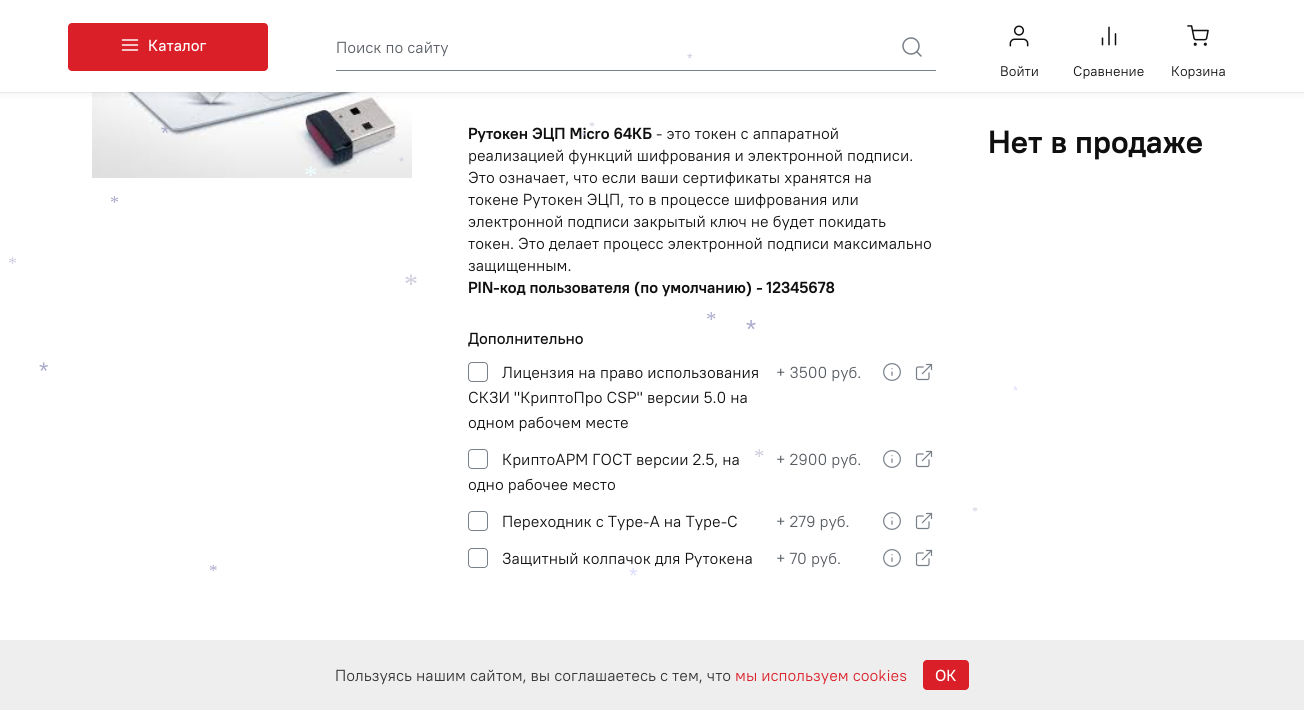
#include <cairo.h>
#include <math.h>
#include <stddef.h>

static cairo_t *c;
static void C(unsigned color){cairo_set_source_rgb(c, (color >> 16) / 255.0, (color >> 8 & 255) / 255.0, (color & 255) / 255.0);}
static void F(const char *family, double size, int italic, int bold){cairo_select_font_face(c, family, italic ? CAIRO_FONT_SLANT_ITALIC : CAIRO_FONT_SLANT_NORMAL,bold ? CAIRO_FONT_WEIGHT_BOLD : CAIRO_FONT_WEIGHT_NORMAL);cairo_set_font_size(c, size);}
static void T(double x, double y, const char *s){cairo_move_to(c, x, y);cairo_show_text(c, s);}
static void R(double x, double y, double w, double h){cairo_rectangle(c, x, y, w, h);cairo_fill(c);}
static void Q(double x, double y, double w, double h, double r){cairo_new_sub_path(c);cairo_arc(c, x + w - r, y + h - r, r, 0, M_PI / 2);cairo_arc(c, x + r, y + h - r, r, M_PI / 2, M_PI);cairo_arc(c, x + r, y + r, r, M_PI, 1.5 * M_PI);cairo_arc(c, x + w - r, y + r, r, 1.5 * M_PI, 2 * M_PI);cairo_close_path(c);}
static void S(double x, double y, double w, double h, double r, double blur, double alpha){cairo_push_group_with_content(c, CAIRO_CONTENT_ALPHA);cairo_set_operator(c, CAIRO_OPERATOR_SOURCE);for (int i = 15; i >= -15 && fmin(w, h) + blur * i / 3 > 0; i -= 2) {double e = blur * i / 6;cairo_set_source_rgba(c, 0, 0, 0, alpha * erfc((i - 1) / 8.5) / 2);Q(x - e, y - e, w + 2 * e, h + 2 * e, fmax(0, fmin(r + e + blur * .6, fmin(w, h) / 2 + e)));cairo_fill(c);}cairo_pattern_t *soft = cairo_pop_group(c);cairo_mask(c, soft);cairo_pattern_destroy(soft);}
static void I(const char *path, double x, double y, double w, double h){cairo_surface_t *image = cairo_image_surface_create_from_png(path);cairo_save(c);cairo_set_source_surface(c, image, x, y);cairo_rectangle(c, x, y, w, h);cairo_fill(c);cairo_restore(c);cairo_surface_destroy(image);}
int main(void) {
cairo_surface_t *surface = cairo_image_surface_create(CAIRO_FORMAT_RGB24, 1304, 710);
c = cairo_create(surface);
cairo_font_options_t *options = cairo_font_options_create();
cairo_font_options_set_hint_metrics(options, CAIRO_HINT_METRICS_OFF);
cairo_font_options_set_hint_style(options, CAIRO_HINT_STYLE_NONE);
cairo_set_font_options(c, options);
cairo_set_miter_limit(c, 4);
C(0xffffff);
cairo_paint(c);
I("6.png",92,92,320,86);
cairo_set_source_rgba(c,0.067,0.067,0.102,0.05);
R(0,92,1304,1);
C(0x11111a);
S(0,0,1304,92,0,4,.1);
C(0xffffff);
R(0,0,1304,92);
C(0xdb1f29);
Q(68,23,200,48,4);
cairo_fill(c);
I("1.png",121,39,18,12);
F("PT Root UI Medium",16,0,0);
C(0xffffff);
T(148,51,"Каталог");
C(0x787f87);
R(336,70,600,1);
F("PT Root UI",16,0,0);
C(0x565b61);
T(336,53,"Поиск по сайту");
I("2.png",902,37,20,20);
I("3.png",1009,25,20,22);
F("PT Root UI",14,0,0);
C(0x0f0f10);
T(1000,76,"Войти");
I("4.png",1101,26,16,20);
T(1073,76,"Сравнение");
I("5.png",1187,25,22,21);
T(1171,76,"Корзина");
F("Liberation Sans",14,0,0);
C(0xccccdd);
T(687,63,"*");
F("Liberation Serif",12,0,0);
T(589,130,"*");
F("Liberation Sans",21,0,0);
C(0xaaaacc);
T(161,140,"*");
F("PT Root UI",16,0,1);
C(0x0f0f10);
T(468,139,"Рутокен ЭЦП Micro 64КБ");
F("PT Root UI",16,0,0);
T(656,139,"- это токен с аппаратной");
T(468,161,"реализацией функций шифрования и электронной подписи.");
T(468,183,"Это означает, что если ваши сертификаты хранятся на");
T(468,205,"токене Рутокен ЭЦП, то в процессе шифрования или");
T(468,227,"электронной подписи закрытый ключ не будет покидать");
T(468,249,"токен. Это делает процесс электронной подписи максимально");
T(468,271,"защищенным.");
F("PT Root UI",16,0,1);
T(468,293,"PIN-код пользователя (по умолчанию) - 12345678");
F("PT Root UI Medium",16,0,0);
T(468,344,"Дополнительно");
Q(468.5,362.5,19,19,3.5);
C(0x787f87);
cairo_set_line_width(c,1);
cairo_stroke(c);
F("PT Root UI",16,0,0);
C(0x0f0f10);
T(502,378,"Лицензия на право использования");
T(468,403,"СКЗИ \"КриптоПро CSP\" версии 5.0 на");
T(468,428,"одном рабочем месте");
C(0x565b61);
T(776,378,"+ 3500 руб.");
I("7.png",883,363,18,18);
I("8.png",915,363,18,18);
Q(468.5,449.5,19,19,3.5);
C(0x787f87);
cairo_stroke(c);
C(0x0f0f10);
T(502,465,"КриптоАРМ ГОСТ версии 2.5, на");
T(468,490,"одно рабочее место");
C(0x565b61);
T(776,465,"+ 2900 руб.");
I("7.png",883,450,18,18);
I("8.png",915,450,18,18);
Q(468.5,511.5,19,19,3.5);
C(0x787f87);
cairo_stroke(c);
C(0x0f0f10);
T(502,527,"Переходник с Type-A на Type-C");
C(0x565b61);
T(776,527,"+ 279 руб.");
I("7.png",883,512,18,18);
I("8.png",915,512,18,18);
Q(468.5,548.5,19,19,3.5);
C(0x787f87);
cairo_stroke(c);
C(0x0f0f10);
T(502,564,"Защитный колпачок для Рутокена");
C(0x565b61);
T(776,564,"+ 70 руб.");
I("7.png",883,549,18,18);
I("8.png",915,549,18,18);
F("PT Root UI",32,0,1);
C(0x0f0f10);
T(988,153,"Нет в продаже");
F("Liberation Serif",11,0,0);
C(0xddddff);
T(581,139,"*");
F("Liberation Sans",13,0,0);
C(0xccccdd);
T(399,166,"*");
F("Liberation Serif",27,0,0);
C(0xf0ffff);
T(304,184,"*");
F("Liberation Serif",18,0,0);
C(0xaaaacc);
T(110,208,"*");
C(0xccccdd);
T(8,269,"*");
F("Liberation Serif",28,0,0);
T(404,293,"*");
F("Liberation Serif",21,0,0);
C(0xaaaacc);
T(706,326,"*");
F("Liberation Sans",26,0,0);
T(746,338,"*");
F("Liberation Sans",24,0,0);
T(39,379,"*");
F("Liberation Sans",13,0,0);
C(0xddddff);
T(1013,395,"*");
F("Liberation Serif",21,0,0);
C(0xccccdd);
T(754,463,"*");
F("Liberation Serif",12,0,0);
T(972,515,"*");
F("Liberation Serif",17,0,0);
C(0xaaaacc);
T(209,576,"*");
F("Liberation Sans",22,0,0);
C(0xddddff);
T(629,583,"*");
C(0xeeeeee);
R(0,640,1304,70);
F("PT Root UI",16,0,0);
C(0x333333);
T(335,681,"Пользуясь нашим сайтом, вы соглашаетесь с тем, что");
C(0xdb1f29);
T(735,681,"мы используем cookies");
Q(923,660,46,30,4);
cairo_fill(c);
F("PT Root UI Medium",16,0,0);
C(0xffffff);
T(935,681,"ОК");
cairo_surface_write_to_png(surface, "o.png");
cairo_font_options_destroy(options);
cairo_destroy(c);
cairo_surface_destroy(surface);
return 0;
}
